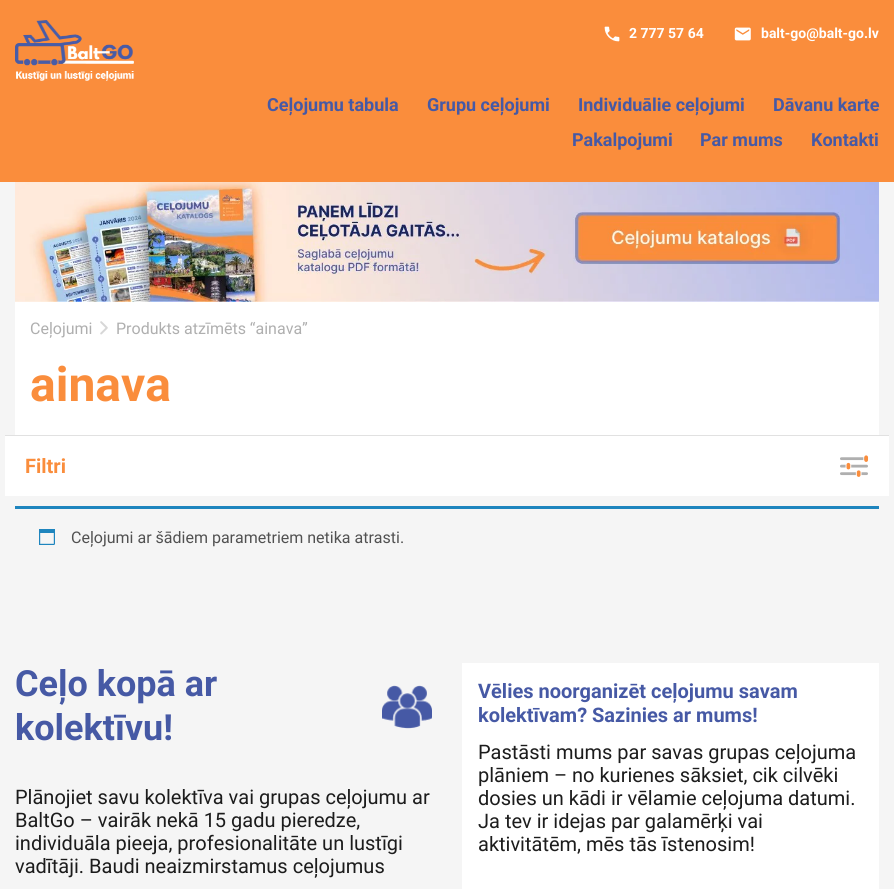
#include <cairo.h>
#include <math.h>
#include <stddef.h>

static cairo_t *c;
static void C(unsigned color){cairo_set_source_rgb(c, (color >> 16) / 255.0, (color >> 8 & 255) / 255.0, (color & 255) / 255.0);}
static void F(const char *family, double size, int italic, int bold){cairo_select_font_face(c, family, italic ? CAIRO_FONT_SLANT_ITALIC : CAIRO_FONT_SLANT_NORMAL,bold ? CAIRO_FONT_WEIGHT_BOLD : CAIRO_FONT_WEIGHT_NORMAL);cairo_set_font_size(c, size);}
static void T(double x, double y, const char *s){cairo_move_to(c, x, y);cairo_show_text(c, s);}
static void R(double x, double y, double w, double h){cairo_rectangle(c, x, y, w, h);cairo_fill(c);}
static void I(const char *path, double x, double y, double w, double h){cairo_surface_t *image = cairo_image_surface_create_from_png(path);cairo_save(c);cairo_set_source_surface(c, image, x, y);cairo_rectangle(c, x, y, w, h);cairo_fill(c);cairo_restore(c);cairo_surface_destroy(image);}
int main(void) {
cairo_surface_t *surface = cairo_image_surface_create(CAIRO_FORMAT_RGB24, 894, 889);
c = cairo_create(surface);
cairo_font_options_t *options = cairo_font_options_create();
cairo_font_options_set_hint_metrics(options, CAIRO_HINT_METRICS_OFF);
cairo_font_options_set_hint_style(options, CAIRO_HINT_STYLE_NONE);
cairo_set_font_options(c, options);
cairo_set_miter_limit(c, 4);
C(0xf5f5f5);
cairo_paint(c);
C(0xfa8d3c);
R(0,0,894,182);
I("1.png",15,20,119,61);
I("2.png",604,26,16,16);
F("Roboto",14,0,1);
C(0xffffff);
T(629,38,"2 777 57 64");
I("3.png",734,27,17,14);
T(761,38,"balt-go@balt-go.lv");
F("Roboto",18,0,1);
C(0x4659a5);
T(267,111,"Ceļojumu tabula");
T(427,111,"Grupu ceļojumi");
T(578,111,"Individuālie ceļojumi");
T(773,111,"Dāvanu karte");
T(572,146,"Pakalpojumi");
T(700,146,"Par mums");
T(811,146,"Kontakti");
C(0xffffff);
R(15,302,864,133);
I("4.png",15,182,864,120);
F("Roboto",16,0,0);
C(0xafafaf);
T(30,334,"Ceļojumi");
I("5.png",100,321,8,14);
T(116,334,"Produkts atzīmēts “ainava”");
F("Roboto",48,0,1);
C(0xfa8d3c);
T(30,401,"ainava");
C(0xffffff);
R(5,436,884,60);
C(0xe1e1e1);
R(5,435,884,1);
F("Roboto",20,0,1);
C(0xfa8d3c);
T(25,473,"Filtri");
I("6.png",840,455,29,22);
C(0x1e85be);
R(15,506,864,3);
I("7.png",39,529,16,16);
F("Roboto",16,0,0);
C(0x515151);
T(71,543,"Ceļojumi ar šādiem parametriem netika atrasti.");
F("Roboto",36,0,1);
C(0x4659a5);
T(15,696,"Ceļo kopā ar");
I("8.png",382,685,50,44);
T(15,740,"kolektīvu!");
F("Roboto",20,0,0);
C(0x1c1c1c);
T(15,804,"Plānojiet savu kolektīva vai grupas ceļojumu ar");
T(15,827,"BaltGo – vairāk nekā 15 gadu pieredze,");
T(15,850,"individuāla pieeja, profesionalitāte un lustīgi");
T(15,873,"vadītāji. Baudi neaizmirstamus ceļojumus");
C(0xffffff);
R(462,663,417,226);
F("Roboto",20,0,1);
C(0x4659a5);
T(478,698,"Vēlies noorganizēt ceļojumu savam");
T(478,722,"kolektīvam? Sazinies ar mums!");
F("Roboto",20,0,0);
C(0x1c1c1c);
T(478,759,"Pastāsti mums par savas grupas ceļojuma");
T(478,782,"plāniem – no kurienes sāksiet, cik cilvēki");
T(478,805,"dosies un kādi ir vēlamie ceļojuma datumi.");
T(478,828,"Ja tev ir idejas par galamērķi vai");
T(478,851,"aktivitātēm, mēs tās īstenosim!");
cairo_surface_write_to_png(surface, "o.png");
cairo_font_options_destroy(options);
cairo_destroy(c);
cairo_surface_destroy(surface);
return 0;
}
